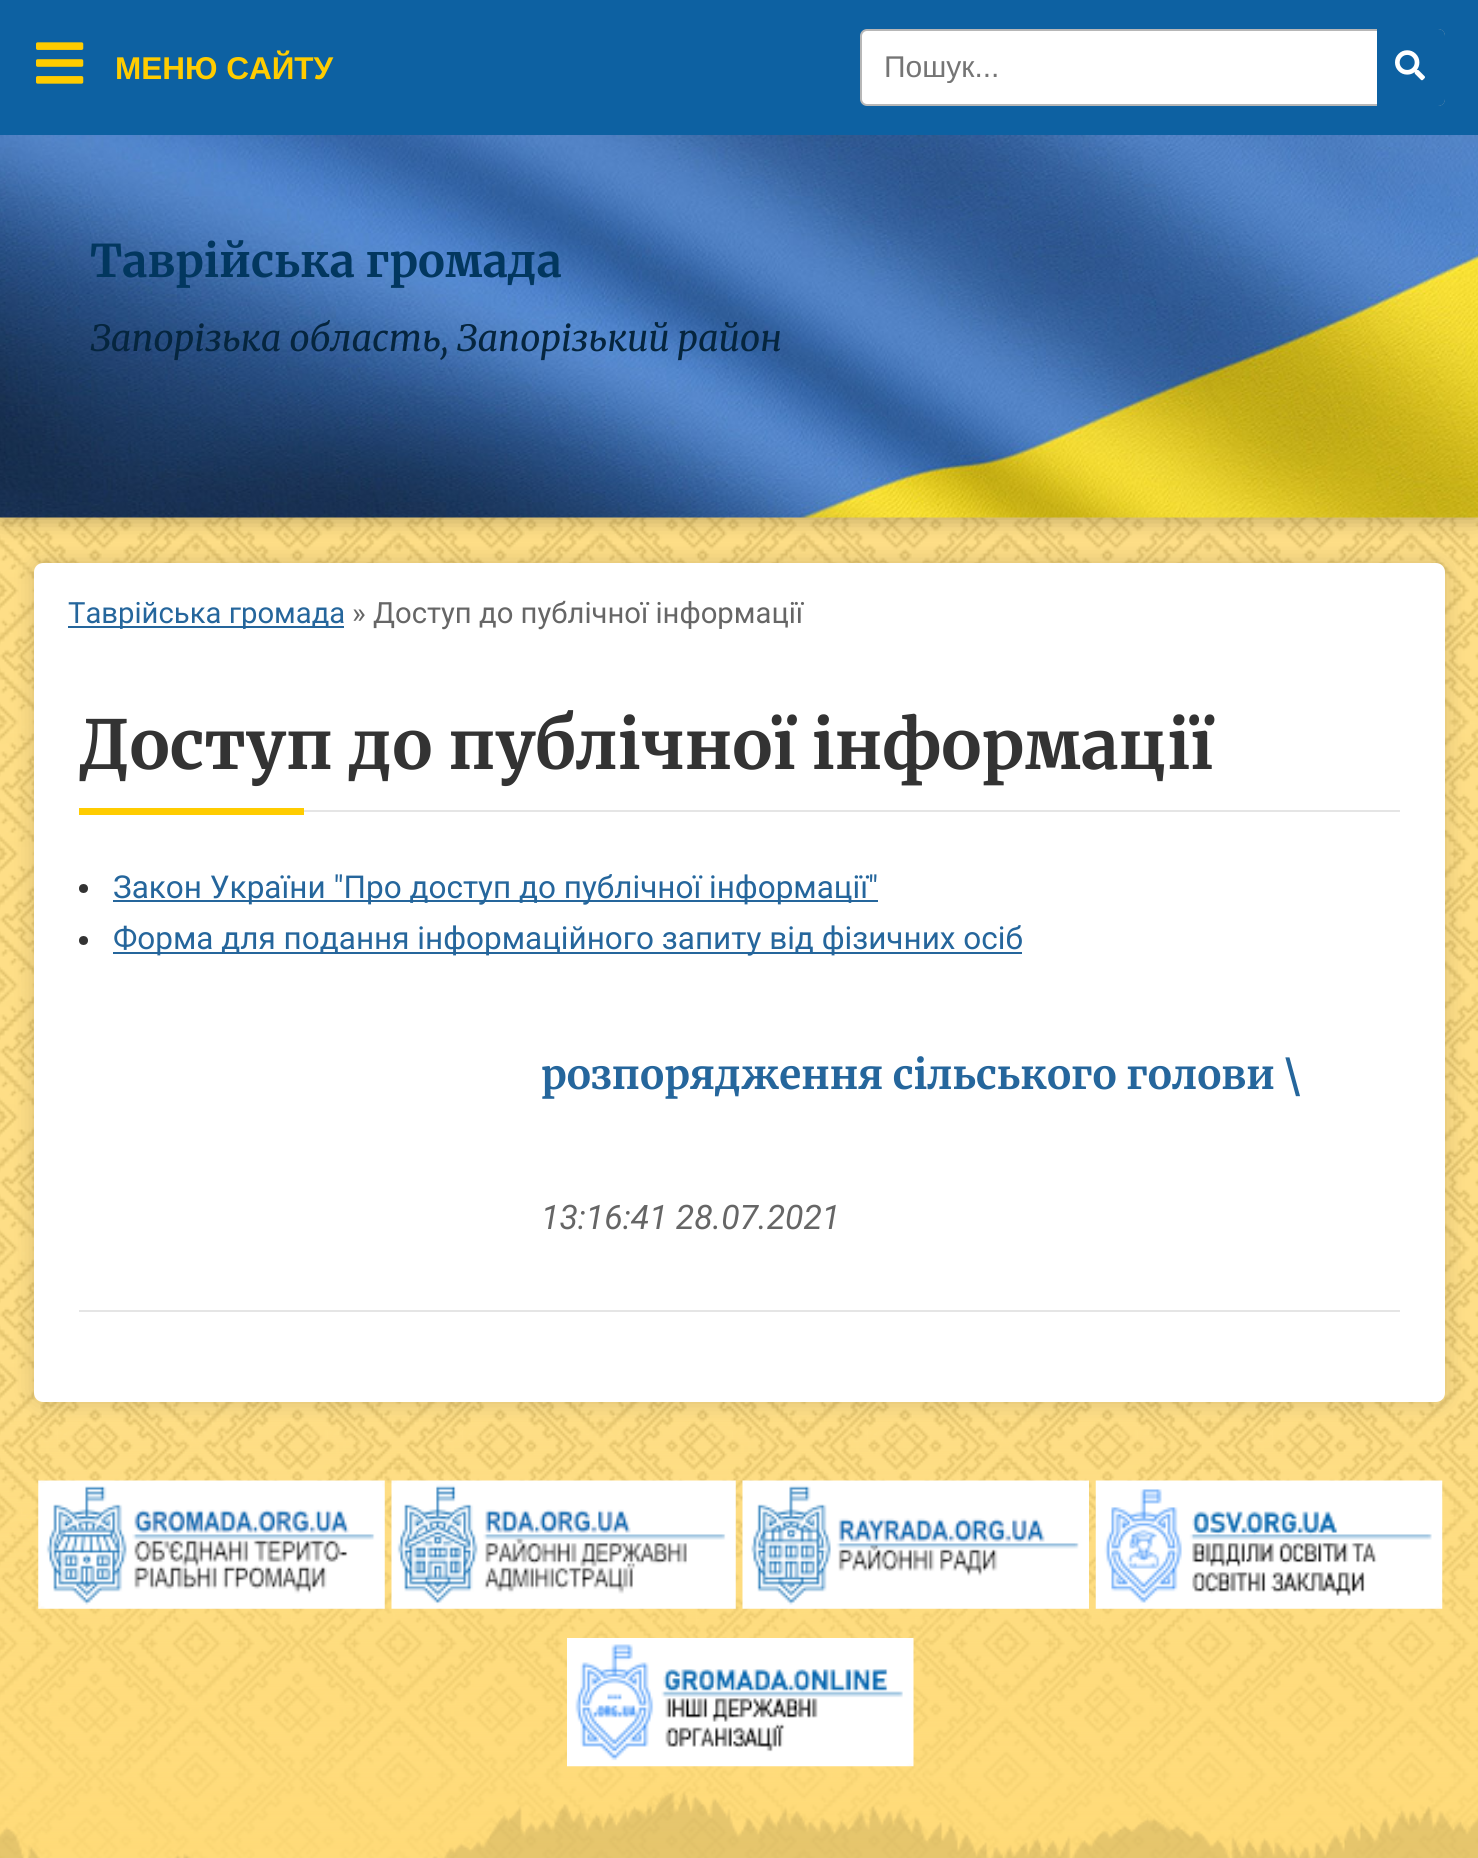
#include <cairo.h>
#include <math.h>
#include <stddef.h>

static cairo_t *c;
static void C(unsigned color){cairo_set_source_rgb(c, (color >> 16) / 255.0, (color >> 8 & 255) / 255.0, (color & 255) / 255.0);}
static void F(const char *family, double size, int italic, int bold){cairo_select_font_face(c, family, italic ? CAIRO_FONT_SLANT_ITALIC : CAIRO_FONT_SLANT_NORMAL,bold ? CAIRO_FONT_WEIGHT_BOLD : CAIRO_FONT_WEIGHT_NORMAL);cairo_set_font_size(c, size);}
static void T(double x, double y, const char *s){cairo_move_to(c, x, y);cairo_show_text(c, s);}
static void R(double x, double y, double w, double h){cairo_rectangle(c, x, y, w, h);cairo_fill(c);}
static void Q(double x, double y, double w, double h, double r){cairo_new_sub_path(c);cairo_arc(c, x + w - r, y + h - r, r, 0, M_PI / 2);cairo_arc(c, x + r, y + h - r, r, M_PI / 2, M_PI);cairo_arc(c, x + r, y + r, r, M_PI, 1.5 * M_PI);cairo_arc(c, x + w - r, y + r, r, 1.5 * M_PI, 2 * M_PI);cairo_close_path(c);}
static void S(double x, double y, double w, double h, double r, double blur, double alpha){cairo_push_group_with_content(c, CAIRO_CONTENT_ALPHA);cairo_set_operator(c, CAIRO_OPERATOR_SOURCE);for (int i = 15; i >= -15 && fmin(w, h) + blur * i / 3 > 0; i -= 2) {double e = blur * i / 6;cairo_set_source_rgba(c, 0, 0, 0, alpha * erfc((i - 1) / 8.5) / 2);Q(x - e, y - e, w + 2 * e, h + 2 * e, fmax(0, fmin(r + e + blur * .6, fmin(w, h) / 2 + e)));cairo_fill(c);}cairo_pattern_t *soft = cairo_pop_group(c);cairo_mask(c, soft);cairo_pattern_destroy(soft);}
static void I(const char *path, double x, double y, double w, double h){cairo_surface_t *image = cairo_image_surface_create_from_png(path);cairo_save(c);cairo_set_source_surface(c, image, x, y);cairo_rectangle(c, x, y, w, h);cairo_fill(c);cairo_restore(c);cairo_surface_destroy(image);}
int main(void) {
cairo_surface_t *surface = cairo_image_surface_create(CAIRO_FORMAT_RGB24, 1478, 1858);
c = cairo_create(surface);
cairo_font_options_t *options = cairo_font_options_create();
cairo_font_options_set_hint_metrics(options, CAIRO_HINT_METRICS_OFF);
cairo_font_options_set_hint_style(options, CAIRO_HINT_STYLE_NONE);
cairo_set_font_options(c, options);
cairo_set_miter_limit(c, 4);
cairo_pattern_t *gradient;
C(0xffda75);
cairo_paint(c);
I("1.png",0,517,1478,1341);
gradient = cairo_pattern_create_linear(739,1368,739,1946);
cairo_pattern_add_color_stop_rgba(gradient,0,1,0.855,0.459,0);
cairo_pattern_add_color_stop_rgba(gradient,1,1,0.855,0.459,1);
cairo_set_source(c,gradient);
cairo_pattern_destroy(gradient);
R(0,1416,1478,442);
C(0x000000);
S(34,563,1411,839,9,11,.15);
C(0xffffff);
Q(34,563,1411,839,9);
cairo_fill(c);
C(0x000000);
S(0,135,1478,383,0,11,.3);
C(0x0d61a2);
R(0,0,1478,135);
I("2.png",36,42,48,42);
F("Liberation Sans",31.5,0,1);
C(0xffcc00);
T(115,79,"МЕНЮ САЙТУ");
C(0x25669c);
R(68,626,276,2);
F("Roboto",29.25,0,0);
T(68,623,"Таврійська громада");
C(0x666666);
T(352,623,"» Доступ до публічної інформації");
C(0xe5e5e5);
R(304,810,1096,2);
F("Merriweather Light",67.5,0,0);
C(0x333333);
T(79,769,"Доступ до публічної інформації");
C(0xffcc00);
R(79,808,225,7);
C(0x333333);
cairo_new_path(c);
cairo_arc(c,83.5,888.5,4.5,0,2 * M_PI);
cairo_fill(c);
C(0x25669c);
R(113,900,765,2);
F("Roboto",31.5,0,0);
T(113,898,"Закон України \"Про доступ до публічної інформації\"");
C(0x333333);
cairo_new_path(c);
cairo_arc(c,83.5,940.5,4.5,0,2 * M_PI);
cairo_fill(c);
C(0x25669c);
R(113,952,909,2);
T(113,949,"Форма для подання інформаційного запиту від фізичних осіб");
C(0xe5e5e5);
R(79,1310,1321,2);
F("Merriweather Light",40.5,0,0);
C(0x25669c);
T(541,1089,"розпорядження сільського голови \\");
F("Roboto",33.75,1,0);
C(0x666666);
T(541,1229,"13:16:41 28.07.2021");
C(0xffffff);
Q(861,30,583,75,6);
cairo_fill_preserve(c);
C(0xb7b7b7);
cairo_stroke(c);
cairo_save(c);
cairo_rectangle(c,884,50,468,33);
cairo_clip(c);
F("Liberation Sans",30,0,0);
C(0x757575);
T(884,77,"Пошук...");
cairo_restore(c);
C(0x0d61a2);
cairo_new_path(c);
cairo_move_to(c,1377,29);
cairo_line_to(c,1438,29);
cairo_curve_to(c,1442,29,1445,32,1445,36);
cairo_line_to(c,1445,99);
cairo_curve_to(c,1445,103,1442,106,1438,106);
cairo_line_to(c,1377,106);
cairo_close_path(c);
cairo_fill(c);
I("3.png",1395,50,30,31);
I("4.png",0,135,1478,383);
F("Merriweather Light",45,0,0);
C(0x02375f);
T(90,277,"Таврійська громада");
F("Merriweather Light",36,1,0);
C(0x05253e);
T(90,351,"Запорізька область, Запорізький район");
I("5.png",0,1791,1478,67);
I("6.png",38,1480,347,129);
I("7.png",391,1480,345,129);
I("8.png",742,1480,347,129);
I("9.png",1095,1480,348,129);
I("10.png",567,1638,347,129);
cairo_surface_write_to_png(surface, "o.png");
cairo_font_options_destroy(options);
cairo_destroy(c);
cairo_surface_destroy(surface);
return 0;
}
